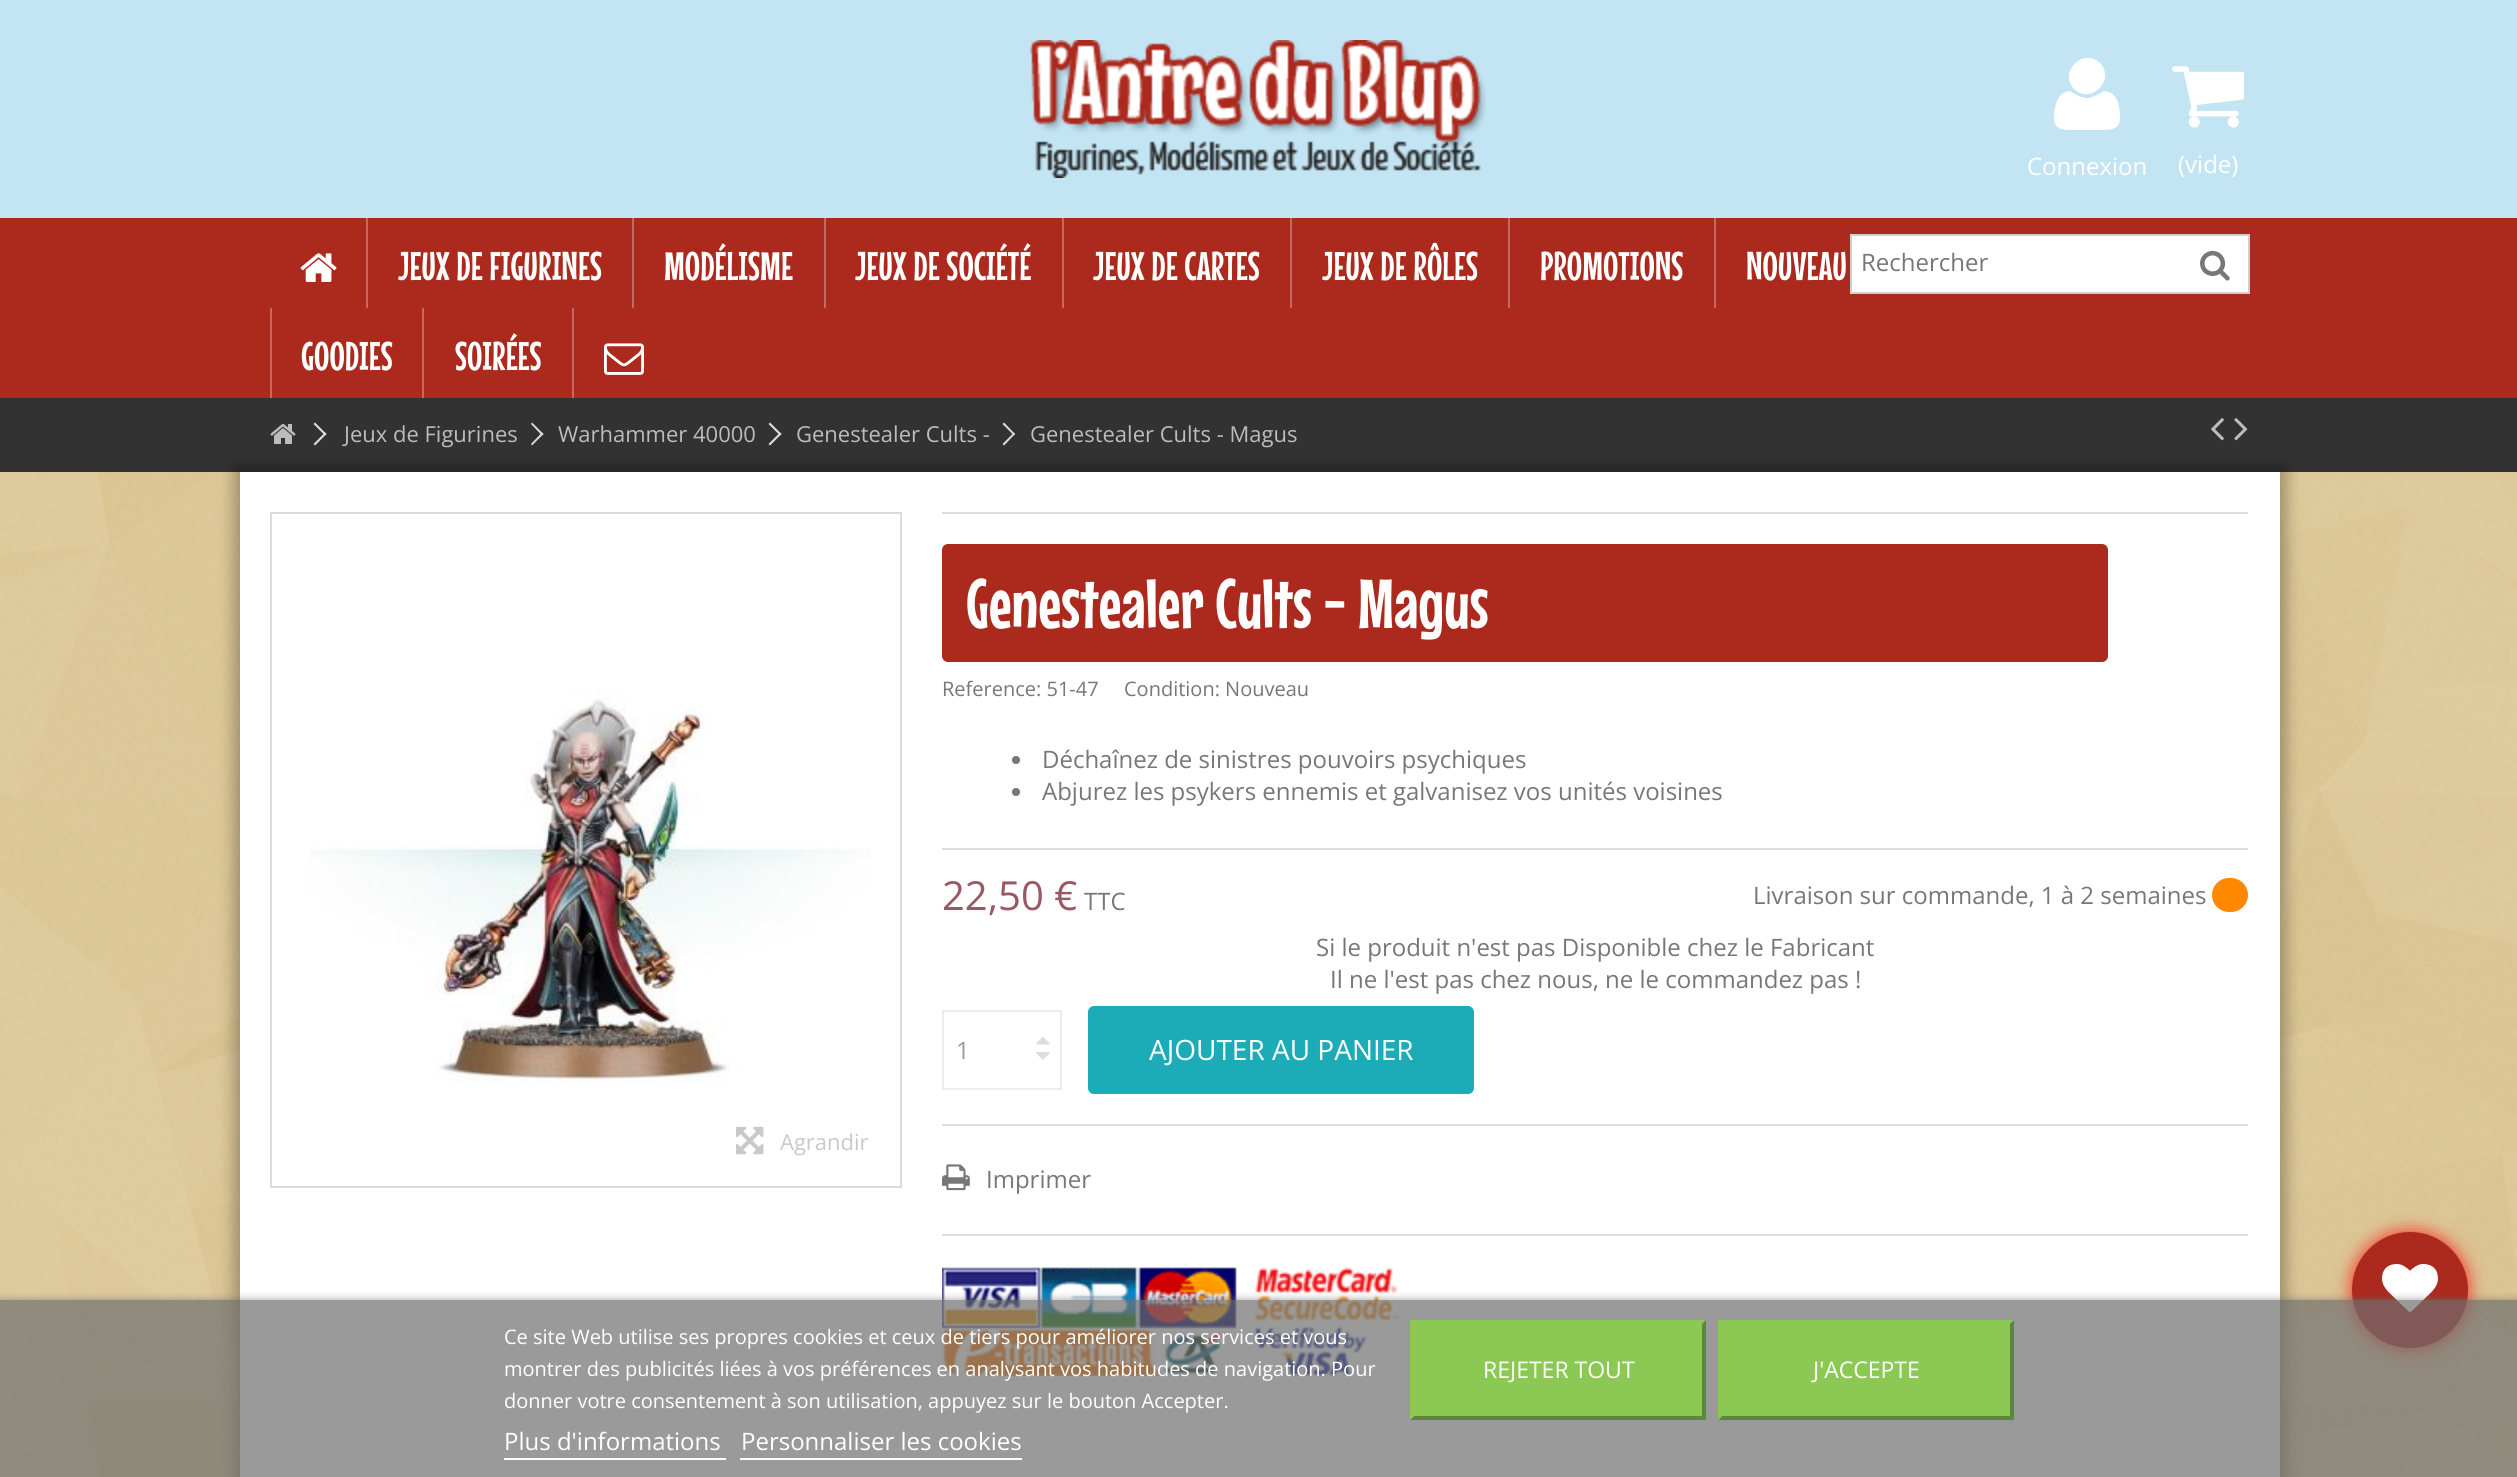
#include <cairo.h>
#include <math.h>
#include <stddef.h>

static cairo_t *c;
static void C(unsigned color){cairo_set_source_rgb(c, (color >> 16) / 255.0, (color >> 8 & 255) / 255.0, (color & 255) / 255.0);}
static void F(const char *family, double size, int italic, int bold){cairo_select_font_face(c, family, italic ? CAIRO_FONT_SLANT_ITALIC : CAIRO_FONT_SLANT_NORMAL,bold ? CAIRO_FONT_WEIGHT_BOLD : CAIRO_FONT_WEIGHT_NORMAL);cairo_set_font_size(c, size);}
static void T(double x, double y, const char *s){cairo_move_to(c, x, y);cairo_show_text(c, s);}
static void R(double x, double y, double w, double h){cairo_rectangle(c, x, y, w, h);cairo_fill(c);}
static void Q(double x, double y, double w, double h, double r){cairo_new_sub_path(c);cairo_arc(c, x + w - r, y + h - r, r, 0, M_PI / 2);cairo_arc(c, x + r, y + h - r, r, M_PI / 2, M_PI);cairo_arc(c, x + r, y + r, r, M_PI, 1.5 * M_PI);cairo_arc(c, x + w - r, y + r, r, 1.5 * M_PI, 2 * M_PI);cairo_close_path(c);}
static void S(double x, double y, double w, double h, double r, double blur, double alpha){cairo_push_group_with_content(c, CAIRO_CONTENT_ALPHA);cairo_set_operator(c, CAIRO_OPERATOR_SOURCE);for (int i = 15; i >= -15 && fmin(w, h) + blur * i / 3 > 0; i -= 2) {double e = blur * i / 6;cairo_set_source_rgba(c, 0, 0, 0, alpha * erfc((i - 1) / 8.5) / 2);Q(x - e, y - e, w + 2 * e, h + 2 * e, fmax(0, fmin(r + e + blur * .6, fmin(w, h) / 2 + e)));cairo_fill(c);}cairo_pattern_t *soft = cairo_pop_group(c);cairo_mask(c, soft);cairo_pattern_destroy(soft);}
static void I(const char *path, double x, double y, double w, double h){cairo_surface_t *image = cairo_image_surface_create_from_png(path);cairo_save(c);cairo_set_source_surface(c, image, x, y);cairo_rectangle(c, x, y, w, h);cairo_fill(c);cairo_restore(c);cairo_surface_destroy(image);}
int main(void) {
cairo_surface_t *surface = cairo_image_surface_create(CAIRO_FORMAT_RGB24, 2517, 1477);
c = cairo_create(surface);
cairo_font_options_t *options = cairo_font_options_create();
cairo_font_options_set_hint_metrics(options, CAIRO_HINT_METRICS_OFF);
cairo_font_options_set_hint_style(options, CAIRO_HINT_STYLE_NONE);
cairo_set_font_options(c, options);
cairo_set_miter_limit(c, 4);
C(0xffffff);
cairo_paint(c);
I("1.png",0,472,2517,1005);
C(0xc3e4f3);
R(0,0,2517,218);
I("2.png",1030,40,456,138);
C(0xffffff);
cairo_new_path(c);
cairo_move_to(c,2120,118);
cairo_curve_to(c,2120,130,2110,130,2101,130);
cairo_line_to(c,2073,130);
cairo_curve_to(c,2064,130,2054,130,2054,118);
cairo_curve_to(c,2054,109,2056,96,2065,92);
cairo_line_to(c,2070,91);
cairo_line_to(c,2075,94);
cairo_curve_to(c,2078,96,2083,98,2087,98);
cairo_curve_to(c,2091,98,2096,96,2099,94);
cairo_line_to(c,2104,91);
cairo_line_to(c,2109,92);
cairo_curve_to(c,2119,96,2120,109,2120,118);
cairo_close_path(c);
cairo_move_to(c,2100,63);
cairo_curve_to(c,2116,80,2091,105,2074,89);
cairo_curve_to(c,2058,72,2083,47,2100,63);
cairo_close_path(c);
cairo_fill(c);
F("Open Sans",24,0,0);
T(2027,175,"Connexion");
I("3.png",2172,66,72,62);
T(2178,173,"(vide)");
C(0xff0000);
S(2352,1232,116,116,58,9,.8);
C(0xab291d);
cairo_arc(c,2410,1290,58,0,2 * M_PI);
cairo_fill(c);
I("4.png",2382,1264,56,48);
R(0,218,2517,180);
I("5.png",300,253,37,29);
C(0xc46961);
R(366,218,2,90);
F("Mouse Memoirs",40,0,0);
C(0xffffff);
T(398,280,"JEUX DE FIGURINES");
C(0xc46961);
R(632,218,2,90);
C(0xffffff);
T(664,280,"MODÉLISME");
C(0xc46961);
R(824,218,2,90);
C(0xffffff);
T(855,280,"JEUX DE SOCIÉTÉ");
C(0xc46961);
R(1062,218,2,90);
C(0xffffff);
T(1093,280,"JEUX DE CARTES");
C(0xc46961);
R(1290,218,2,90);
C(0xffffff);
T(1322,280,"JEUX DE RÔLES");
C(0xc46961);
R(1508,218,2,90);
C(0xffffff);
T(1540,280,"PROMOTIONS");
C(0xc46961);
R(1714,218,2,90);
C(0xffffff);
T(1746,280,"NOUVEAU");
C(0xc46961);
R(270,308,2,90);
C(0xffffff);
T(301,370,"GOODIES");
C(0xc46961);
R(422,308,2,90);
C(0xffffff);
T(455,370,"SOIRÉES");
C(0xc46961);
R(572,308,2,90);
I("6.png",604,343,40,32);
C(0xffffff);
cairo_rectangle(c,1851,235,398,58);
cairo_fill_preserve(c);
C(0xcecece);
cairo_stroke(c);
F("Open Sans",24,0,0);
C(0x777777);
T(1861,271,"Rechercher");
I("7.png",2200,250,30,31);
C(0x323232);
R(0,398,2517,74);
C(0x000000);
S(234,466,2052,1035,0,8,.3);
I("8.png",270,424,26,20);
C(0xdddddd);
cairo_new_path(c);
cairo_move_to(c,315,422.5);
cairo_line_to(c,326.5,434);
cairo_line_to(c,325,435.5);
cairo_line_to(c,313.5,424);
cairo_close_path(c);
cairo_fill(c);
cairo_new_path(c);
cairo_move_to(c,325,432.5);
cairo_line_to(c,326.5,434);
cairo_line_to(c,315,445.5);
cairo_line_to(c,313.5,444);
cairo_close_path(c);
cairo_fill(c);
F("Open Sans",22,0,0);
C(0xbcbcbc);
T(344,442,"Jeux de Figurines");
C(0xdddddd);
cairo_new_path(c);
cairo_move_to(c,532,422.5);
cairo_line_to(c,543.5,434);
cairo_line_to(c,542,435.5);
cairo_line_to(c,531,424);
cairo_close_path(c);
cairo_fill(c);
cairo_new_path(c);
cairo_move_to(c,542,432.5);
cairo_line_to(c,543.5,434);
cairo_line_to(c,532,445.5);
cairo_line_to(c,531,444);
cairo_close_path(c);
cairo_fill(c);
C(0xbcbcbc);
T(558,442,"Warhammer 40000");
C(0xdddddd);
cairo_new_path(c);
cairo_move_to(c,770,422.5);
cairo_line_to(c,781.5,434);
cairo_line_to(c,780,435.5);
cairo_line_to(c,768.5,424);
cairo_close_path(c);
cairo_fill(c);
cairo_new_path(c);
cairo_move_to(c,780,432.5);
cairo_line_to(c,781.5,434);
cairo_line_to(c,770,445.5);
cairo_line_to(c,768.5,444);
cairo_close_path(c);
cairo_fill(c);
C(0xbcbcbc);
T(796,442,"Genestealer Cults -");
C(0xdddddd);
cairo_new_path(c);
cairo_move_to(c,1004,422.5);
cairo_line_to(c,1015,434);
cairo_line_to(c,1014,435.5);
cairo_line_to(c,1002.5,424);
cairo_close_path(c);
cairo_fill(c);
cairo_new_path(c);
cairo_move_to(c,1014,432.5);
cairo_line_to(c,1015,434);
cairo_line_to(c,1004,445.5);
cairo_line_to(c,1002.5,444);
cairo_close_path(c);
cairo_fill(c);
C(0xbcbcbc);
T(1030,442,"Genestealer Cults - Magus");
I("9.png",2211,418,13,23);
I("10.png",2234,418,14,23);
C(0xffffff);
R(240,472,2040,1005);
cairo_rectangle(c,271,513,630,674);
C(0xdbdbdb);
cairo_stroke(c);
I("11.png",309,691,562,393);
I("12.png",736,1126,28,29);
C(0xc9c9c9);
T(780,1150,"Agrandir");
C(0xdddddd);
R(942,512,1306,2);
C(0xab291d);
Q(942,544,1166,118,6);
cairo_fill(c);
F("Mouse Memoirs",70,0,0);
C(0xffffff);
T(966,628,"Genestealer Cults - Magus");
F("Open Sans",20,0,0);
C(0x777777);
T(942,696,"Reference: 51-47");
T(1124,696,"Condition: Nouveau");
cairo_new_path(c);
cairo_arc(c,1016,760,4,0,2 * M_PI);
cairo_fill(c);
F("Open Sans",24,0,0);
T(1042,768,"Déchaînez de sinistres pouvoirs psychiques");
cairo_new_path(c);
cairo_arc(c,1016,792,4,0,2 * M_PI);
cairo_fill(c);
T(1042,800,"Abjurez les psykers ennemis et galvanisez vos unités voisines");
C(0xdddddd);
R(942,848,1306,2);
F("Open Sans",40,0,0);
C(0x9b5763);
T(942,910,"22,50 €");
F("Open Sans",24,0,0);
C(0x777777);
T(1084,910,"TTC");
T(1753,904,"Livraison sur commande, 1 à 2 semaines");
C(0xff8800);
Q(2212,878,36,34,17);
cairo_fill(c);
C(0x777777);
T(1316,956,"Si le produit n'est pas Disponible chez le Fabricant");
T(1330,988,"Il ne l'est pas chez nous, ne le commandez pas !");
cairo_rectangle(c,943,1011,118,78);
C(0xececec);
cairo_stroke(c);
C(0x9c9b9b);
T(956,1059,"1");
I("13.png",1036,1037,14,8);
I("14.png",1036,1052,14,8);
C(0x1cacb7);
Q(1088,1006,386,88,6);
cairo_fill(c);
F("Open Sans",28,0,0);
C(0xffffff);
T(1149,1060,"AJOUTER AU PANIER");
C(0xdddddd);
R(942,1124,1306,2);
I("15.png",942,1164,28,27);
F("Open Sans",24,0,0);
C(0x777777);
T(986,1188,"Imprimer");
C(0xdddddd);
R(942,1234,1306,2);
I("16.png",942,1267,459,109);
cairo_save(c);
cairo_rectangle(c,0,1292,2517,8);
cairo_clip(c);
C(0x707070);
S(0,1302,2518,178,0,5,1);
cairo_restore(c);
cairo_set_source_rgba(c,0.439,0.439,0.439,0.7);
R(0,1300,2517,177);
F("Open Sans",20,0,0);
C(0xffffff);
T(504,1344,"Ce site Web utilise ses propres cookies et ceux de tiers pour améliorer nos services et vous");
T(504,1376,"montrer des publicités liées à vos préférences en analysant vos habitudes de navigation. Pour");
T(504,1408,"donner votre consentement à son utilisation, appuyez sur le bouton Accepter.");
F("Open Sans",24,0,0);
T(504,1450,"Plus d'informations");
R(504,1458,222,2);
T(741,1450,"Personnaliser les cookies");
R(740,1458,282,2);
C(0x8bc954);
R(1410,1320,296,100);
C(0x5d8638);
cairo_new_path(c);
cairo_move_to(c,1706,1320);
cairo_line_to(c,1706,1420);
cairo_line_to(c,1702,1416);
cairo_line_to(c,1702,1324);
cairo_close_path(c);
cairo_fill(c);
cairo_new_path(c);
cairo_move_to(c,1706,1420);
cairo_line_to(c,1410,1420);
cairo_line_to(c,1414,1416);
cairo_line_to(c,1702,1416);
cairo_close_path(c);
cairo_fill(c);
C(0x8bc954);
cairo_new_path(c);
cairo_move_to(c,1410,1420);
cairo_line_to(c,1410,1320);
cairo_line_to(c,1414,1324);
cairo_line_to(c,1414,1416);
cairo_close_path(c);
cairo_fill(c);
F("Open Sans",23,0,0);
C(0xffffff);
T(1483,1378,"REJETER TOUT");
C(0x8bc954);
R(1718,1320,296,100);
C(0x5d8638);
cairo_new_path(c);
cairo_move_to(c,2014,1320);
cairo_line_to(c,2014,1420);
cairo_line_to(c,2010,1416);
cairo_line_to(c,2010,1324);
cairo_close_path(c);
cairo_fill(c);
cairo_new_path(c);
cairo_move_to(c,2014,1420);
cairo_line_to(c,1718,1420);
cairo_line_to(c,1722,1416);
cairo_line_to(c,2010,1416);
cairo_close_path(c);
cairo_fill(c);
C(0x8bc954);
cairo_new_path(c);
cairo_move_to(c,1718,1420);
cairo_line_to(c,1718,1320);
cairo_line_to(c,1722,1324);
cairo_line_to(c,1722,1416);
cairo_close_path(c);
cairo_fill(c);
C(0xffffff);
T(1813,1378,"J'ACCEPTE");
cairo_surface_write_to_png(surface, "o.png");
cairo_font_options_destroy(options);
cairo_destroy(c);
cairo_surface_destroy(surface);
return 0;
}
